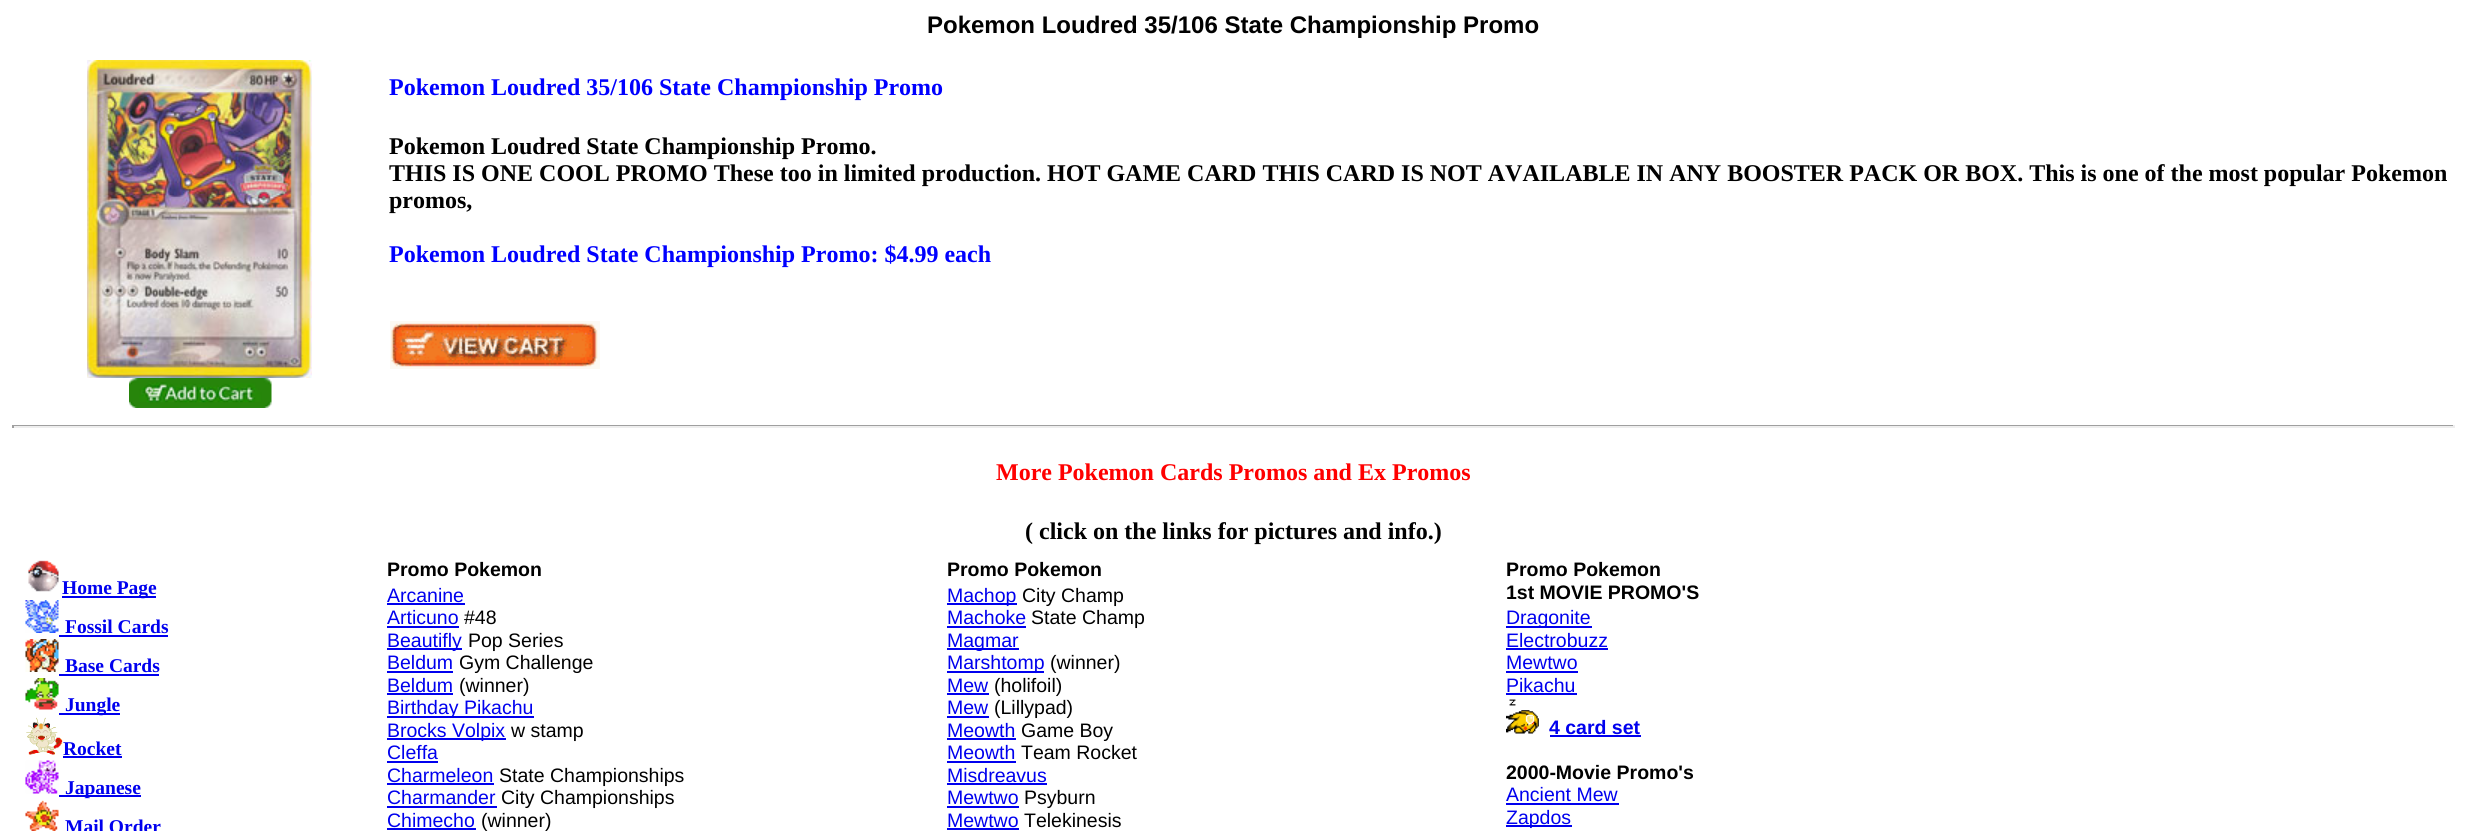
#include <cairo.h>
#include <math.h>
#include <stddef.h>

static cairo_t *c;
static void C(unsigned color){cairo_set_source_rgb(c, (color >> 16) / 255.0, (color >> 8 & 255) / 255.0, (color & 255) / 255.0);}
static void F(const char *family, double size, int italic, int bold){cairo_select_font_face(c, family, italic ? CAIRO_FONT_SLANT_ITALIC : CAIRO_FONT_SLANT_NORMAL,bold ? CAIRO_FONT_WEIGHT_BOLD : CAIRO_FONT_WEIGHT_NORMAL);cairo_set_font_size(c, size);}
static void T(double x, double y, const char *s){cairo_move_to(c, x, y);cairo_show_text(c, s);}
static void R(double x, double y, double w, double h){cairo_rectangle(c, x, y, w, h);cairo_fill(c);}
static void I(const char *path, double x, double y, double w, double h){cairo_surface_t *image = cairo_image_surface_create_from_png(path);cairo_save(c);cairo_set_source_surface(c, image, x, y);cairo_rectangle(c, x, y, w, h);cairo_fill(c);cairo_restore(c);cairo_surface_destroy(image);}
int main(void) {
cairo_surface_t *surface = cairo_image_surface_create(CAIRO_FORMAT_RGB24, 2466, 831);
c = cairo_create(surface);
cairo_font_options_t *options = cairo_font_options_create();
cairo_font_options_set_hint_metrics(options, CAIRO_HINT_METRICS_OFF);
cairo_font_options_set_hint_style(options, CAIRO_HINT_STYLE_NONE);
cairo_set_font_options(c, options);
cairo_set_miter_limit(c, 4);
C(0xffffff);
cairo_paint(c);
F("Liberation Sans",24,0,1);
C(0x000000);
T(927,33,"Pokemon Loudred 35/106 State Championship Promo");
I("1.png",87,60,225,318);
I("2.png",129,378,143,30);
F("Liberation Serif",24,0,1);
C(0x0000ff);
T(389,95,"Pokemon Loudred 35/106 State Championship Promo");
C(0x000000);
T(389,154,"Pokemon Loudred State Championship Promo.");
T(389,181,"THIS IS ONE COOL PROMO These too in limited production. HOT GAME CARD THIS CARD IS NOT AVAILABLE IN ANY BOOSTER PACK OR BOX. This is one of the most popular Pokemon");
T(389,208,"promos,");
C(0x0000ff);
T(389,262,"Pokemon Loudred State Championship Promo: $4.99 each");
I("3.png",390,321,210,48);
C(0x9f9f9f);
R(12,425,2442,1);
C(0xeeeeee);
R(2453,425,2,3);
R(12,426,2442,2);
C(0x9f9f9f);
R(12,425,2,3);
C(0xff0000);
T(996,480,"More Pokemon Cards Promos and Ex Promos");
C(0x000000);
T(1025,539,"( click on the links for pictures and info.)");
I("4.png",28,560,31,32);
C(0x0000ee);
R(62,596,94,2);
F("Liberation Serif",19.5,0,1);
T(62,594,"Home Page");
I("5.png",25,600,34,33);
T(65,633,"Fossil Cards");
R(59,635,109,2);
I("6.png",25,639,34,33);
T(65,672,"Base Cards");
R(59,674,100,2);
I("7.png",25,678,34,32);
R(59,713,61,2);
T(65,711,"Jungle");
I("8.png",26,717,37,38);
T(63,755,"Rocket");
R(63,756,59,2);
I("9.png",25,760,34,34);
R(59,795,82,2);
T(65,794,"Japanese");
I("10.png",25,800,34,31);
T(65,833,"Mail Order");
F("Liberation Sans",19.5,0,1);
C(0x000000);
T(387,576,"Promo Pokemon");
F("Liberation Sans",19.5,0,0);
C(0x0000ee);
T(387,602,"Arcanine");
R(387,603,78,2);
T(387,624,"Articuno");
R(387,626,72,2);
C(0x000000);
T(464,624,"#48");
C(0x0000ee);
R(387,648,75,2);
T(387,647,"Beautifly");
C(0x000000);
T(468,647,"Pop Series");
C(0x0000ee);
T(387,669,"Beldum");
R(387,671,66,2);
C(0x000000);
T(459,669,"Gym Challenge");
C(0x0000ee);
T(387,692,"Beldum");
R(387,693,66,2);
C(0x000000);
T(459,692,"(winner)");
C(0x0000ee);
R(387,716,147,2);
T(387,714,"Birthday Pikachu");
R(387,738,119,2);
T(387,737,"Brocks Volpix");
C(0x000000);
T(511,737,"w stamp");
C(0x0000ee);
T(387,759,"Cleffa");
R(387,761,51,2);
T(387,782,"Charmeleon");
R(387,783,107,2);
C(0x000000);
T(499,782,"State Championships");
C(0x0000ee);
T(387,804,"Charmander");
R(387,806,110,2);
C(0x000000);
T(501,804,"City Championships");
C(0x0000ee);
T(387,827,"Chimecho");
R(387,828,89,2);
C(0x000000);
T(481,827,"(winner)");
F("Liberation Sans",19.5,0,1);
T(947,576,"Promo Pokemon");
C(0x0000ee);
R(947,603,70,2);
F("Liberation Sans",19.5,0,0);
T(947,602,"Machop");
C(0x000000);
T(1022,602,"City Champ");
C(0x0000ee);
T(947,624,"Machoke");
R(947,626,79,2);
C(0x000000);
T(1031,624,"State Champ");
C(0x0000ee);
R(947,648,72,2);
T(947,647,"Magmar");
R(947,671,97,2);
T(947,669,"Marshtomp");
C(0x000000);
T(1050,669,"(winner)");
C(0x0000ee);
T(947,692,"Mew");
R(947,693,42,2);
C(0x000000);
T(994,692,"(holifoil)");
C(0x0000ee);
T(947,714,"Mew");
R(947,716,42,2);
C(0x000000);
T(994,714,"(Lillypad)");
C(0x0000ee);
T(947,737,"Meowth");
R(947,738,69,2);
C(0x000000);
T(1021,737,"Game Boy");
C(0x0000ee);
T(947,759,"Meowth");
R(947,761,69,2);
C(0x000000);
T(1021,759,"Team Rocket");
C(0x0000ee);
T(947,782,"Misdreavus");
R(947,783,100,2);
T(947,804,"Mewtwo");
R(947,806,72,2);
C(0x000000);
T(1024,804,"Psyburn");
C(0x0000ee);
T(947,827,"Mewtwo");
R(947,828,72,2);
C(0x000000);
T(1024,827,"Telekinesis");
F("Liberation Sans",19.5,0,1);
T(1506,576,"Promo Pokemon");
T(1506,599,"1st MOVIE PROMO'S");
C(0x0000ee);
R(1506,626,86,2);
F("Liberation Sans",19.5,0,0);
T(1506,624,"Dragonite");
T(1506,647,"Electrobuzz");
R(1506,648,102,2);
T(1506,669,"Mewtwo");
R(1506,671,72,2);
T(1506,692,"Pikachu");
R(1506,693,71,2);
I("11.png",1506,699,33,35);
F("Liberation Sans",19.5,0,1);
T(1549,734,"4 card set");
R(1550,735,91,2);
C(0x000000);
T(1506,779,"2000-Movie Promo's");
F("Liberation Sans",19.5,0,0);
C(0x0000ee);
T(1506,801,"Ancient Mew");
R(1506,803,113,2);
R(1506,825,66,2);
T(1506,824,"Zapdos");
cairo_surface_write_to_png(surface, "o.png");
cairo_font_options_destroy(options);
cairo_destroy(c);
cairo_surface_destroy(surface);
return 0;
}
